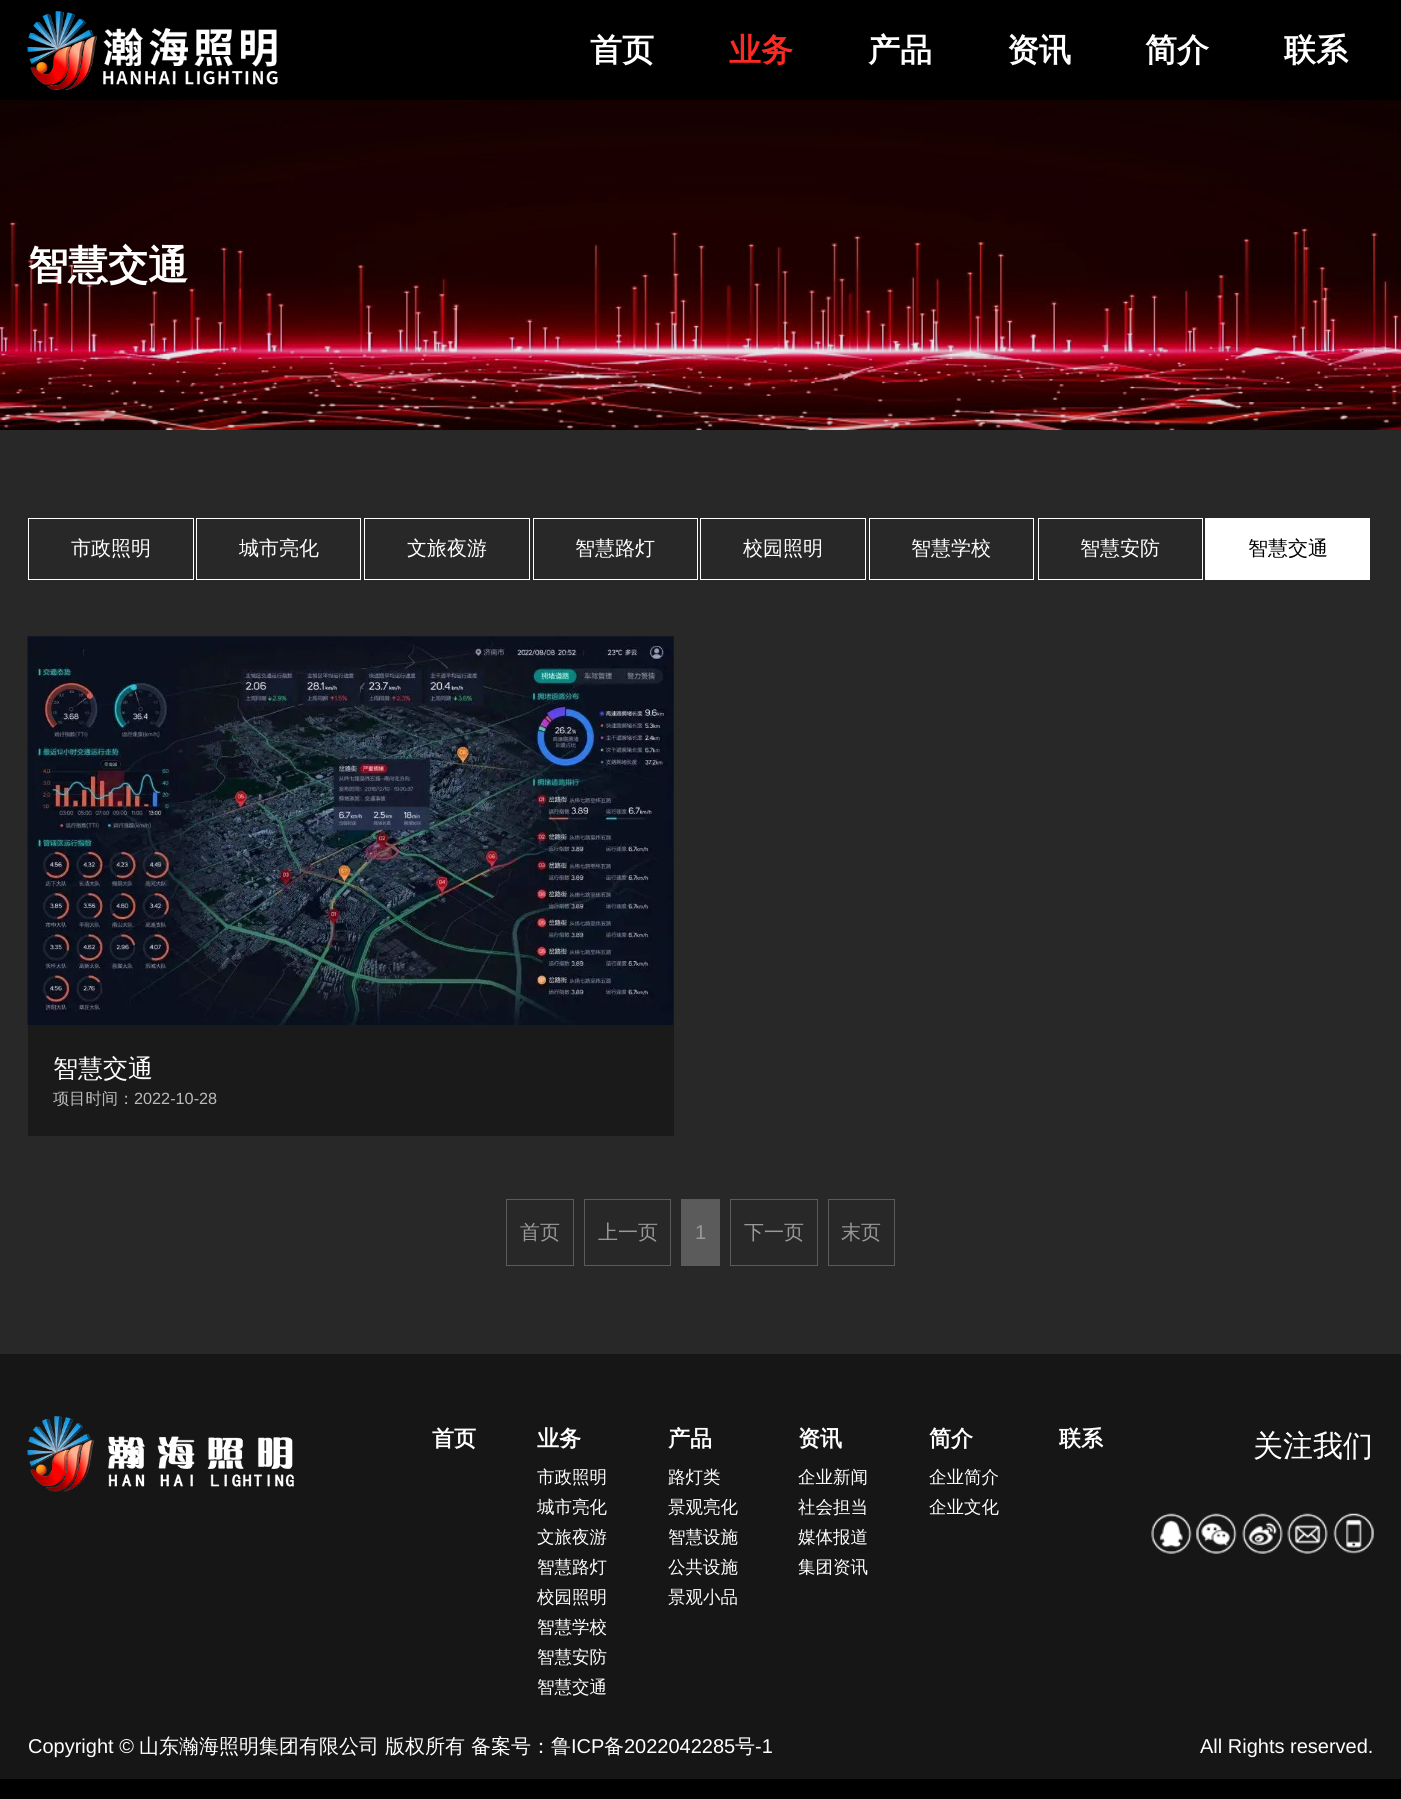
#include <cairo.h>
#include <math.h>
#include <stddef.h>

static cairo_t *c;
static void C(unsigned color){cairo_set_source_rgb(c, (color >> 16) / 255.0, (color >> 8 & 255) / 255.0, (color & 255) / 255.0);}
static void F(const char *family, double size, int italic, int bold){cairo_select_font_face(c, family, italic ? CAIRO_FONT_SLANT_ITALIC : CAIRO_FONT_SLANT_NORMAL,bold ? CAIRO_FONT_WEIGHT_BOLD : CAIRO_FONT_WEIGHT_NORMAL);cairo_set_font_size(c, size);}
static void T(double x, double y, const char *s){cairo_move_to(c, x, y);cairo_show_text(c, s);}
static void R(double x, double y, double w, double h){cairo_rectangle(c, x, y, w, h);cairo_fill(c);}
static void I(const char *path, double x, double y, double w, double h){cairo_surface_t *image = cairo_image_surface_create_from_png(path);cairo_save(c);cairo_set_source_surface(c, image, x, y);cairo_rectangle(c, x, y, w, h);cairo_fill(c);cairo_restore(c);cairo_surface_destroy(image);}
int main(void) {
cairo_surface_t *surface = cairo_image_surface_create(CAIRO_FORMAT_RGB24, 1401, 1799);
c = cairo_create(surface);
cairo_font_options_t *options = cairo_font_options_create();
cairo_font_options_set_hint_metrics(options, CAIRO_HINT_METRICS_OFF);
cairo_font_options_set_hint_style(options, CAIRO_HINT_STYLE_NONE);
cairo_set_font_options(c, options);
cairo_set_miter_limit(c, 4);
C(0x000000);
cairo_paint(c);
I("1.png",27,11,251,79);
F("WenQuanYi Zen Hei",32,0,1);
C(0xffffff);
T(590,61,"首页");
C(0xfb2a23);
T(729,61,"业务");
C(0xffffff);
T(868,61,"产品");
T(1007,61,"资讯");
T(1145,61,"简介");
T(1284,61,"联系");
I("2.png",0,100,1401,330);
F("WenQuanYi Zen Hei",40,0,1);
T(28,279,"智慧交通");
C(0x282828);
R(0,430,1401,924);
cairo_rectangle(c,28.5,518.5,165,61);
C(0xffffff);
cairo_set_line_width(c,1);
cairo_stroke(c);
F("WenQuanYi Zen Hei Medium",20,0,0);
T(71,555,"市政照明");
cairo_rectangle(c,196.5,518.5,164,61);
cairo_stroke(c);
T(239,555,"城市亮化");
cairo_rectangle(c,364.5,518.5,165,61);
cairo_stroke(c);
T(407,555,"文旅夜游");
cairo_rectangle(c,533.5,518.5,164,61);
cairo_stroke(c);
T(575,555,"智慧路灯");
cairo_rectangle(c,700.5,518.5,165,61);
cairo_stroke(c);
T(743,555,"校园照明");
cairo_rectangle(c,869.5,518.5,164,61);
cairo_stroke(c);
T(911,555,"智慧学校");
cairo_rectangle(c,1038.5,518.5,164,61);
cairo_stroke(c);
T(1080,555,"智慧安防");
R(1205,518,165,62);
C(0x000000);
T(1248,555,"智慧交通");
I("3.png",27,636,647,389);
C(0x1a1a1a);
R(28,1025,646,111);
F("WenQuanYi Zen Hei Medium",25,0,0);
C(0xffffff);
T(53,1077,"智慧交通");
F("WenQuanYi Zen Hei Medium",16.25,0,0);
C(0xbbbbbb);
T(53,1104,"项目时间：");
F("Liberation Sans",16.25,0,0);
T(134,1104,"2022-10-28");
cairo_rectangle(c,506.5,1199.5,67,66);
C(0x5b5b5b);
cairo_stroke(c);
F("WenQuanYi Zen Hei Medium",20,0,0);
C(0x999999);
T(520,1239,"首页");
cairo_rectangle(c,584.5,1199.5,86,66);
C(0x5b5b5b);
cairo_stroke(c);
C(0x999999);
T(598,1239,"上一页");
C(0x5b5b5b);
R(681,1199,39,67);
F("Liberation Sans",20,0,0);
C(0x999999);
T(695,1239,"1");
cairo_rectangle(c,730.5,1199.5,87,66);
C(0x5b5b5b);
cairo_stroke(c);
F("WenQuanYi Zen Hei Medium",20,0,0);
C(0x999999);
T(744,1239,"下一页");
cairo_rectangle(c,828.5,1199.5,66,66);
C(0x5b5b5b);
cairo_stroke(c);
C(0x999999);
T(841,1239,"末页");
C(0x161616);
R(0,1354,1401,425);
I("4.png",27,1416,267,76);
F("WenQuanYi Zen Hei",22,0,1);
C(0xffffff);
T(432,1446,"首页");
T(537,1446,"业务");
F("WenQuanYi Zen Hei Medium",17.5,0,0);
T(537,1483,"市政照明");
T(537,1513,"城市亮化");
T(537,1543,"文旅夜游");
T(537,1573,"智慧路灯");
T(537,1603,"校园照明");
T(537,1633,"智慧学校");
T(537,1663,"智慧安防");
T(537,1693,"智慧交通");
F("WenQuanYi Zen Hei",22,0,1);
T(668,1446,"产品");
F("WenQuanYi Zen Hei Medium",17.5,0,0);
T(668,1483,"路灯类");
T(668,1513,"景观亮化");
T(668,1543,"智慧设施");
T(668,1573,"公共设施");
T(668,1603,"景观小品");
F("WenQuanYi Zen Hei",22,0,1);
T(798,1446,"资讯");
F("WenQuanYi Zen Hei Medium",17.5,0,0);
T(798,1483,"企业新闻");
T(798,1513,"社会担当");
T(798,1543,"媒体报道");
T(798,1573,"集团资讯");
F("WenQuanYi Zen Hei",22,0,1);
T(929,1446,"简介");
F("WenQuanYi Zen Hei Medium",17.5,0,0);
T(929,1483,"企业简介");
T(929,1513,"企业文化");
F("WenQuanYi Zen Hei",22,0,1);
T(1059,1446,"联系");
F("WenQuanYi Zen Hei Medium",30,0,0);
T(1253,1456,"关注我们");
I("5.png",1151,1513,41,41);
I("6.png",1196,1513,41,41);
I("7.png",1242,1513,41,41);
I("8.png",1287,1513,41,41);
I("9.png",1333,1513,41,41);
F("Liberation Sans",20,0,0);
T(28,1753,"Copyright ©");
F("WenQuanYi Zen Hei Medium",20,0,0);
T(139,1753,"山东瀚海照明集团有限公司");
T(385,1753,"版权所有");
T(471,1753,"备案号：鲁");
F("Liberation Sans",20,0,0);
T(571,1753,"ICP");
F("WenQuanYi Zen Hei Medium",20,0,0);
T(604,1753,"备");
F("Liberation Sans",20,0,0);
T(624,1753,"2022042285");
F("WenQuanYi Zen Hei Medium",20,0,0);
T(735,1753,"号");
F("Liberation Sans",20,0,0);
T(755,1753,"-1");
T(1200,1753,"All Rights reserved.");
cairo_surface_write_to_png(surface, "o.png");
cairo_font_options_destroy(options);
cairo_destroy(c);
cairo_surface_destroy(surface);
return 0;
}
